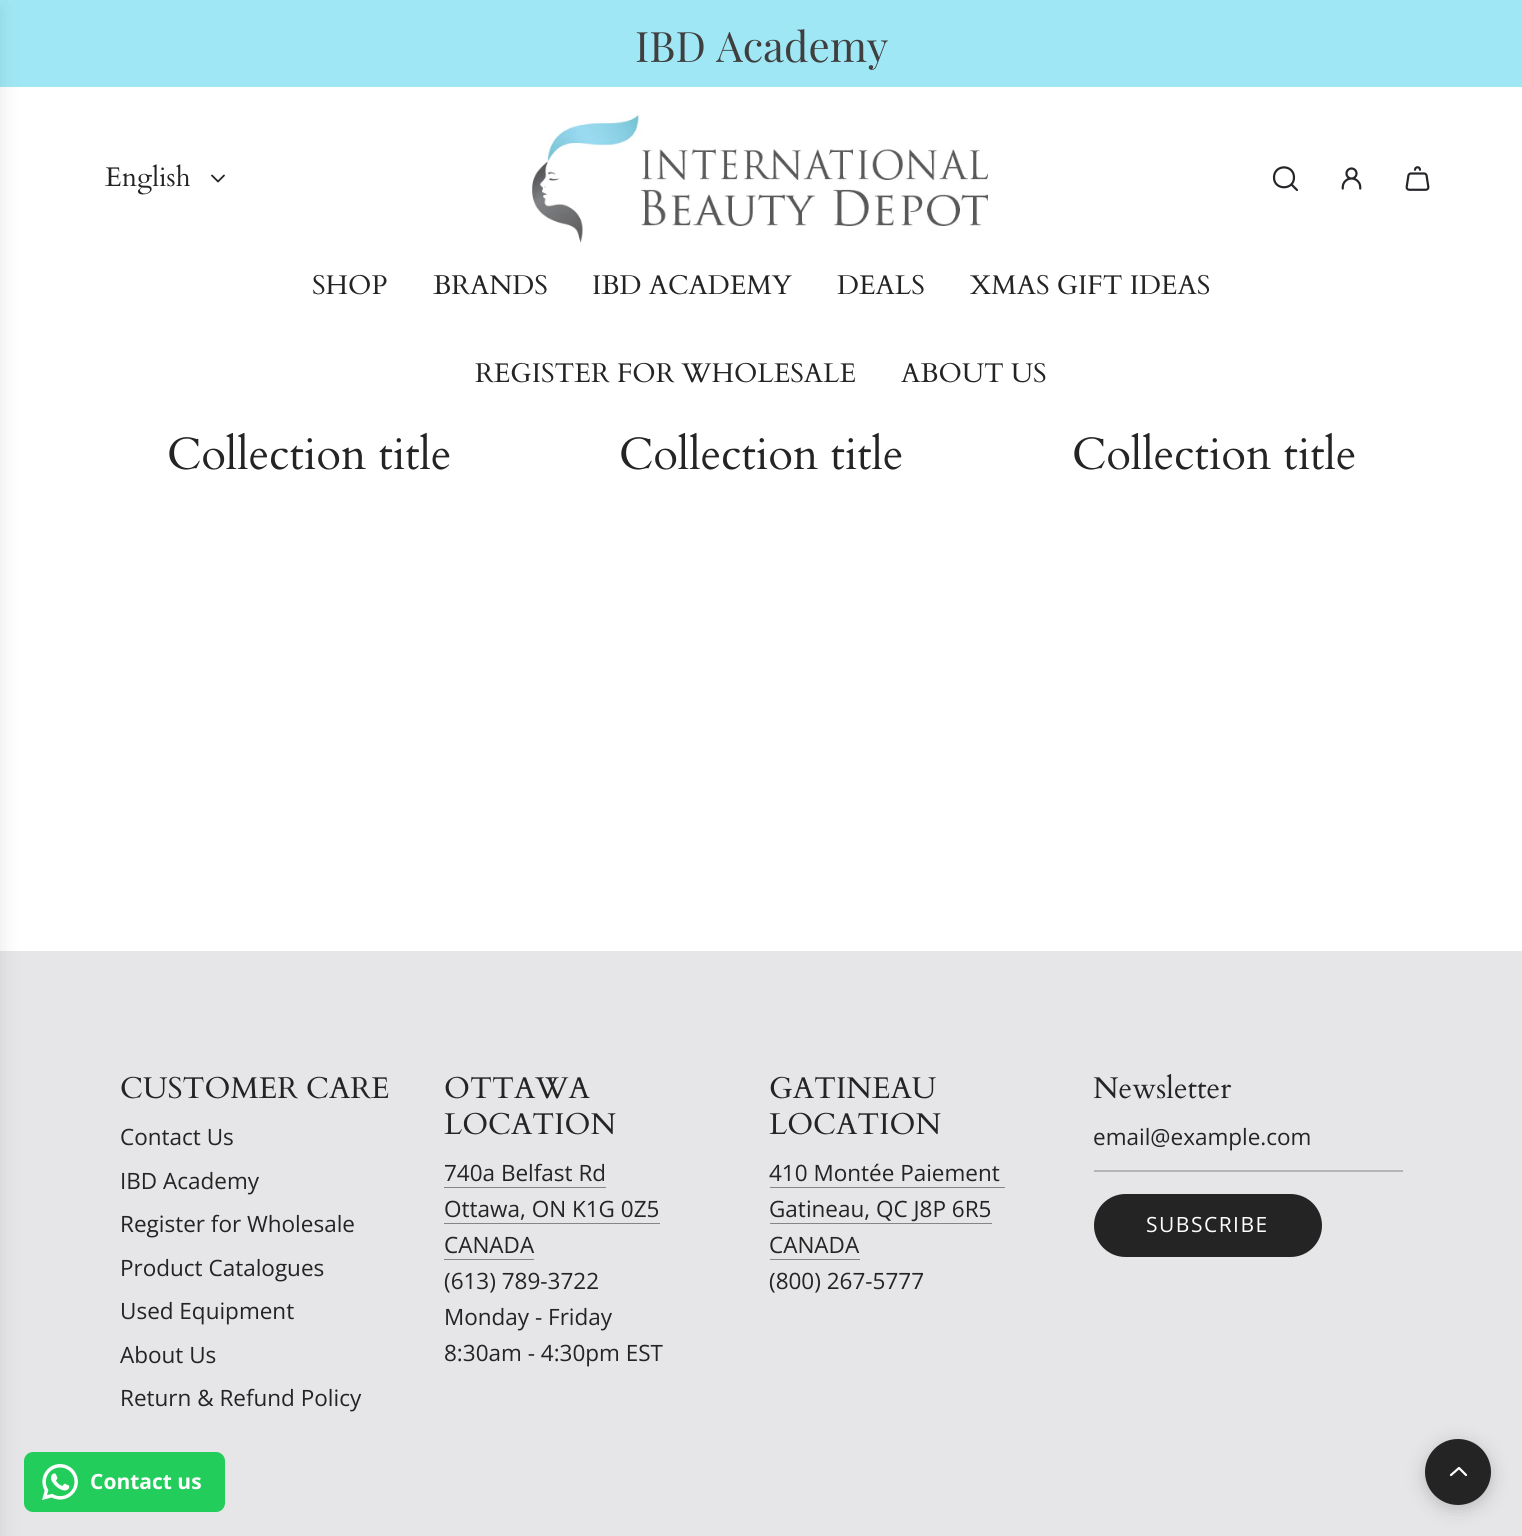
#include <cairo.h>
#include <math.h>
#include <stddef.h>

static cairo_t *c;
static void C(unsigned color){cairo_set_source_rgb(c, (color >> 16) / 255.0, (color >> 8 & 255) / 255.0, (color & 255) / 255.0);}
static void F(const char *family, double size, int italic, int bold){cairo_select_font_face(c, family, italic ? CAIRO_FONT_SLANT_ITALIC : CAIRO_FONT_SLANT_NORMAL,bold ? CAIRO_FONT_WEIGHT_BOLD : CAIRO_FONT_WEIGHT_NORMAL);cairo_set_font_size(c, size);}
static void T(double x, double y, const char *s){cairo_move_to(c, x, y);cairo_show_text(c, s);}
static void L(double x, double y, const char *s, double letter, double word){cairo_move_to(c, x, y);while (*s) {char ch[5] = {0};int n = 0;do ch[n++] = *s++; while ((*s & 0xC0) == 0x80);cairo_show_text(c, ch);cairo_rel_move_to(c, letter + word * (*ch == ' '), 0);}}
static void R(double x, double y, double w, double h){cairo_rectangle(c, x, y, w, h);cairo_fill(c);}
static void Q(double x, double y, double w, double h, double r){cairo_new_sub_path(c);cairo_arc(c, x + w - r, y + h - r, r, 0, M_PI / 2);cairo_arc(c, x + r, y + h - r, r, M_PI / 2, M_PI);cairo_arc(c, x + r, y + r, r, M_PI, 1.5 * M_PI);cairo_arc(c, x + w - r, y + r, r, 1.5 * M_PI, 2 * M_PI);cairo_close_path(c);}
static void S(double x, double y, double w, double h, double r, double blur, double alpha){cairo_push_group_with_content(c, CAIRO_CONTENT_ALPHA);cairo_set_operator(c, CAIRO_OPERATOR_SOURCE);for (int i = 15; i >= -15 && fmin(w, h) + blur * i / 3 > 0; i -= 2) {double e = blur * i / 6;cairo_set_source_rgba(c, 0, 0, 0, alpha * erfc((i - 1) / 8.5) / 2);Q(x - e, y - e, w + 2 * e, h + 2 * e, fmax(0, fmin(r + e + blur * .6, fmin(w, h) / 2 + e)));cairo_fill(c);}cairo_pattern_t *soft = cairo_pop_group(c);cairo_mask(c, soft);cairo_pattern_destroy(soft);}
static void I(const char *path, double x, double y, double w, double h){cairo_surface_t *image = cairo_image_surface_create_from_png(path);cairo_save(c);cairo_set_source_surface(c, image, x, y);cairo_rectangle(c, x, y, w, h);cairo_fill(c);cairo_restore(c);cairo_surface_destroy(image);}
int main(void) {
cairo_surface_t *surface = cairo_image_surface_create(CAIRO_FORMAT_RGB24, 1522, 1536);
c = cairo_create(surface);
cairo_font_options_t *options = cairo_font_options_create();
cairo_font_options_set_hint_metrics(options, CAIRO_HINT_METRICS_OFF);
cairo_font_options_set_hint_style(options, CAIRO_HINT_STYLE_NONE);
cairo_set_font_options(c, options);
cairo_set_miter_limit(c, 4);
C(0xffffff);
cairo_paint(c);
C(0xa0e7f5);
R(0,0,1522,87);
F("Playfair Display",42,0,0);
C(0x3f3f3f);
T(635,62,"IBD Academy");
C(0xe6e5e7);
R(0,951,1522,585);
C(0x22cd5b);
Q(24,1452,201,60,9);
cairo_fill(c);
C(0x000000);
S(-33,8,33,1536,0,11,.1);
F("Cardo",27,0,0);
C(0x242424);
T(105,186,"English");
cairo_new_path(c);
cairo_move_to(c,212,175.5);
cairo_line_to(c,218,181.5);
cairo_line_to(c,224,175.5);
C(0x262428);
cairo_set_line_width(c,1.8);
cairo_set_line_cap(c,CAIRO_LINE_CAP_ROUND);
cairo_set_line_join(c,CAIRO_LINE_JOIN_ROUND);
cairo_stroke(c);
I("1.png",532,115,456,128);
cairo_new_path(c);
cairo_move_to(c,1292,185);
cairo_line_to(c,1297,190);
cairo_move_to(c,1274,177.5);
cairo_curve_to(c,1274,190.5,1294,190.5,1294,177.5);
cairo_curve_to(c,1294,164,1274,164,1274,177.5);
cairo_close_path(c);
cairo_set_line_width(c,2.2);
cairo_stroke(c);
I("2.png",1341,167,21,23);
I("3.png",1405,166,25,25);
C(0x242424);
T(312,294,"SHOP");
T(433,294,"BRANDS");
T(592,294,"IBD ACADEMY");
T(837,294,"DEALS");
T(970,294,"XMAS GIFT IDEAS");
T(475,382,"REGISTER FOR WHOLESALE");
T(901,382,"ABOUT US");
F("Cardo",45,0,0);
T(167,469,"Collection title");
T(619,469,"Collection title");
T(1072,469,"Collection title");
F("Cardo",30,0,0);
T(120,1098,"CUSTOMER CARE");
F("Open Sans",22.5,0,0);
T(120,1145,"Contact Us");
T(120,1189,"IBD Academy");
T(120,1232,"Register for Wholesale");
T(120,1276,"Product Catalogues");
T(120,1319,"Used Equipment");
T(120,1363,"About Us");
T(120,1406,"Return & Refund Policy");
F("Cardo",30,0,0);
T(444,1098,"OTTAWA");
T(444,1134,"LOCATION");
F("Open Sans",22.5,0,0);
T(444,1181,"740a Belfast Rd");
C(0x858586);
R(444,1187,162,1);
C(0x242424);
T(444,1217,"Ottawa, ON K1G 0Z5");
C(0x858586);
R(444,1223,216,1);
C(0x242424);
T(444,1253,"CANADA");
C(0x858586);
R(444,1259,90,1);
C(0x242424);
T(444,1289,"(613) 789-3722");
T(444,1325,"Monday - Friday");
T(444,1361,"8:30am - 4:30pm EST");
F("Cardo",30,0,0);
T(769,1098,"GATINEAU");
T(769,1134,"LOCATION");
F("Open Sans",22.5,0,0);
T(769,1181,"410 Montée Paiement");
C(0x858586);
R(770,1187,235,1);
C(0x242424);
T(769,1217,"Gatineau, QC J8P 6R5");
C(0x858586);
R(770,1223,222,1);
C(0x242424);
T(769,1253,"CANADA");
C(0x858586);
R(770,1259,90,1);
C(0x242424);
T(769,1289,"(800) 267-5777");
F("Cardo",30,0,0);
T(1093,1098,"Newsletter");
C(0xb6b5b6);
R(1094,1170,309,2);
F("Open Sans",22.5,0,0);
C(0x242424);
T(1093,1145,"email@example.com");
Q(1094,1194,228,63,31.5);
cairo_fill(c);
F("Open Sans",21,0,0);
C(0xffffff);
L(1146,1232,"SUBSCRIBE",1.5,0);
I("4.png",42,1464,36,36);
F("Open Sans",21,0,1);
T(90,1489,"Contact us");
C(0x000000);
S(1425,1443,66,66,33,9,.18);
C(0x242424);
cairo_arc(c,1458,1472,33,0,2 * M_PI);
cairo_fill(c);
cairo_new_path(c);
cairo_move_to(c,1451,1475);
cairo_line_to(c,1459,1468);
cairo_line_to(c,1466,1475);
C(0xffffff);
cairo_stroke(c);
cairo_surface_write_to_png(surface, "o.png");
cairo_font_options_destroy(options);
cairo_destroy(c);
cairo_surface_destroy(surface);
return 0;
}
